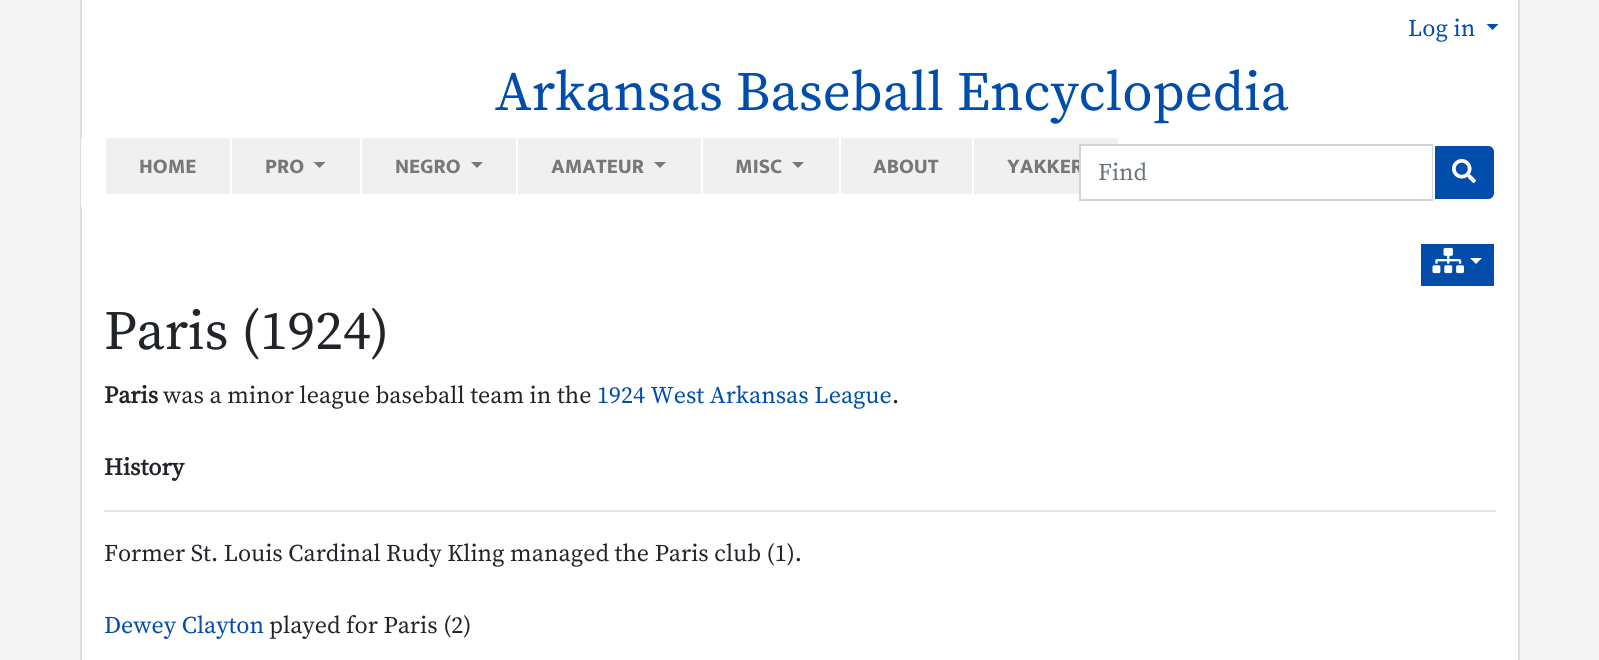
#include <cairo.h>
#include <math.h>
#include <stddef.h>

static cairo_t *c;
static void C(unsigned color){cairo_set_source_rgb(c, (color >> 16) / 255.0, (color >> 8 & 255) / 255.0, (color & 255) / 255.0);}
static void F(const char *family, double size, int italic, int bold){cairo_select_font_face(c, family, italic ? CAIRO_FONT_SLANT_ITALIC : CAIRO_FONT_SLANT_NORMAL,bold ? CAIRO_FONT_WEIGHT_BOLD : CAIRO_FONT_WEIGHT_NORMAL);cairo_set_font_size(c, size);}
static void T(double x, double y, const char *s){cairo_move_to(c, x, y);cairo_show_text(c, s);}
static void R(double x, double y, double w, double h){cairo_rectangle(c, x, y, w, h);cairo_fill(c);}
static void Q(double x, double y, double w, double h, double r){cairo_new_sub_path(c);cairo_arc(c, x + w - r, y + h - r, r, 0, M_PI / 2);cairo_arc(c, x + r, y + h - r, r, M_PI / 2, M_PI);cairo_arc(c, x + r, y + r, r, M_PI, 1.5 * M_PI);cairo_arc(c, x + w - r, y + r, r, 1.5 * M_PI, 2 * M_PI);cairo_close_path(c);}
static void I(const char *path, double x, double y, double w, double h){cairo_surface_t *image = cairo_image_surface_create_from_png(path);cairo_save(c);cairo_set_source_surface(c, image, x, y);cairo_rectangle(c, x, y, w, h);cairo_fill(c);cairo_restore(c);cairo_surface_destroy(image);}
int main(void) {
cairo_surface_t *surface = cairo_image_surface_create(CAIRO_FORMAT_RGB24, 1599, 660);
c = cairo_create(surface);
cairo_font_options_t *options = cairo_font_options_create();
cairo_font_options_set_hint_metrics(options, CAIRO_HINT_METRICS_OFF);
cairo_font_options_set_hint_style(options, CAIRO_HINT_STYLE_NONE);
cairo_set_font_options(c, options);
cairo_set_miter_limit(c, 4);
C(0xf4f4f4);
cairo_paint(c);
C(0xffffff);
R(82,0,1436,660);
C(0xdddddd);
R(1518,0,2,660);
R(80,0,2,660);
F("Source Serif Pro",24,0,0);
C(0x004dac);
T(1408,36,"Log in");
cairo_new_path(c);
cairo_move_to(c,1486.5,24);
cairo_line_to(c,1498.5,24);
cairo_line_to(c,1492.5,30);
cairo_close_path(c);
cairo_fill(c);
F("Source Serif Pro",55.25,0,0);
T(495,110,"Arkansas Baseball Encyclopedia");
C(0xffffff);
R(81,138,1,69);
C(0xf0f0f0);
R(106,138,124,56);
F("Mukta ExtraBold",21,0,0);
C(0x787878);
T(139,173,"HOME");
C(0xf0f0f0);
R(232,138,128,56);
C(0x787878);
T(265,173,"PRO");
cairo_new_path(c);
cairo_move_to(c,313.5,162);
cairo_line_to(c,325.5,162);
cairo_line_to(c,319.5,168);
cairo_close_path(c);
cairo_fill(c);
C(0xf0f0f0);
R(362,138,154,56);
C(0x787878);
T(395,173,"NEGRO");
cairo_new_path(c);
cairo_move_to(c,471,162);
cairo_line_to(c,483,162);
cairo_line_to(c,477,168);
cairo_close_path(c);
cairo_fill(c);
C(0xf0f0f0);
R(518,138,183,56);
C(0x787878);
T(551,173,"AMATEUR");
cairo_new_path(c);
cairo_move_to(c,654,162);
cairo_line_to(c,666,162);
cairo_line_to(c,660,168);
cairo_close_path(c);
cairo_fill(c);
C(0xf0f0f0);
R(703,138,136,56);
C(0x787878);
T(735,173,"MISC");
cairo_new_path(c);
cairo_move_to(c,792,162);
cairo_line_to(c,804,162);
cairo_line_to(c,798,168);
cairo_close_path(c);
cairo_fill(c);
C(0xf0f0f0);
R(841,138,131,56);
C(0x787878);
T(873,173,"ABOUT");
C(0xf0f0f0);
R(974,138,144,56);
C(0x787878);
T(1007,173,"YAKKER");
C(0xffffff);
R(1081,146,37,48);
cairo_rectangle(c,1080,145,353,55);
C(0xced4da);
cairo_stroke(c);
F("Source Serif Pro",24,0,0);
C(0x6c757d);
T(1098,180,"Find");
C(0x004dac);
cairo_new_path(c);
cairo_move_to(c,1434,145);
cairo_line_to(c,1488,145);
cairo_curve_to(c,1492,145,1495,148,1495,152);
cairo_line_to(c,1495,193);
cairo_curve_to(c,1495,197,1492,200,1488,200);
cairo_line_to(c,1434,200);
cairo_close_path(c);
cairo_fill_preserve(c);
C(0xffffff);
cairo_stroke(c);
I("1.png",1452,159,24,24);
C(0x004dac);
Q(1420,243,75,44,1);
cairo_fill_preserve(c);
C(0xffffff);
cairo_stroke(c);
I("2.png",1432,247,32,27);
cairo_new_path(c);
cairo_move_to(c,1470,258);
cairo_line_to(c,1482,258);
cairo_line_to(c,1476,264);
cairo_close_path(c);
cairo_fill(c);
F("Source Serif Pro",55.25,0,0);
C(0x212529);
T(104,349,"Paris (1924)");
F("Source Serif Pro",24,0,1);
T(104,403,"Paris");
F("Source Serif Pro",24,0,0);
T(163,403,"was a minor league baseball team in the");
C(0x004dac);
T(597,403,"1924 West Arkansas League");
C(0x212529);
T(892,403,".");
F("Source Serif Pro",24,0,1);
T(104,475,"History");
C(0xe6e6e6);
R(104,510,1392,2);
F("Source Serif Pro",24,0,0);
C(0x212529);
T(104,561,"Former St. Louis Cardinal Rudy Kling managed the Paris club (1).");
C(0x004dac);
T(104,633,"Dewey Clayton");
C(0x212529);
T(269,633,"played for Paris (2)");
cairo_surface_write_to_png(surface, "o.png");
cairo_font_options_destroy(options);
cairo_destroy(c);
cairo_surface_destroy(surface);
return 0;
}
